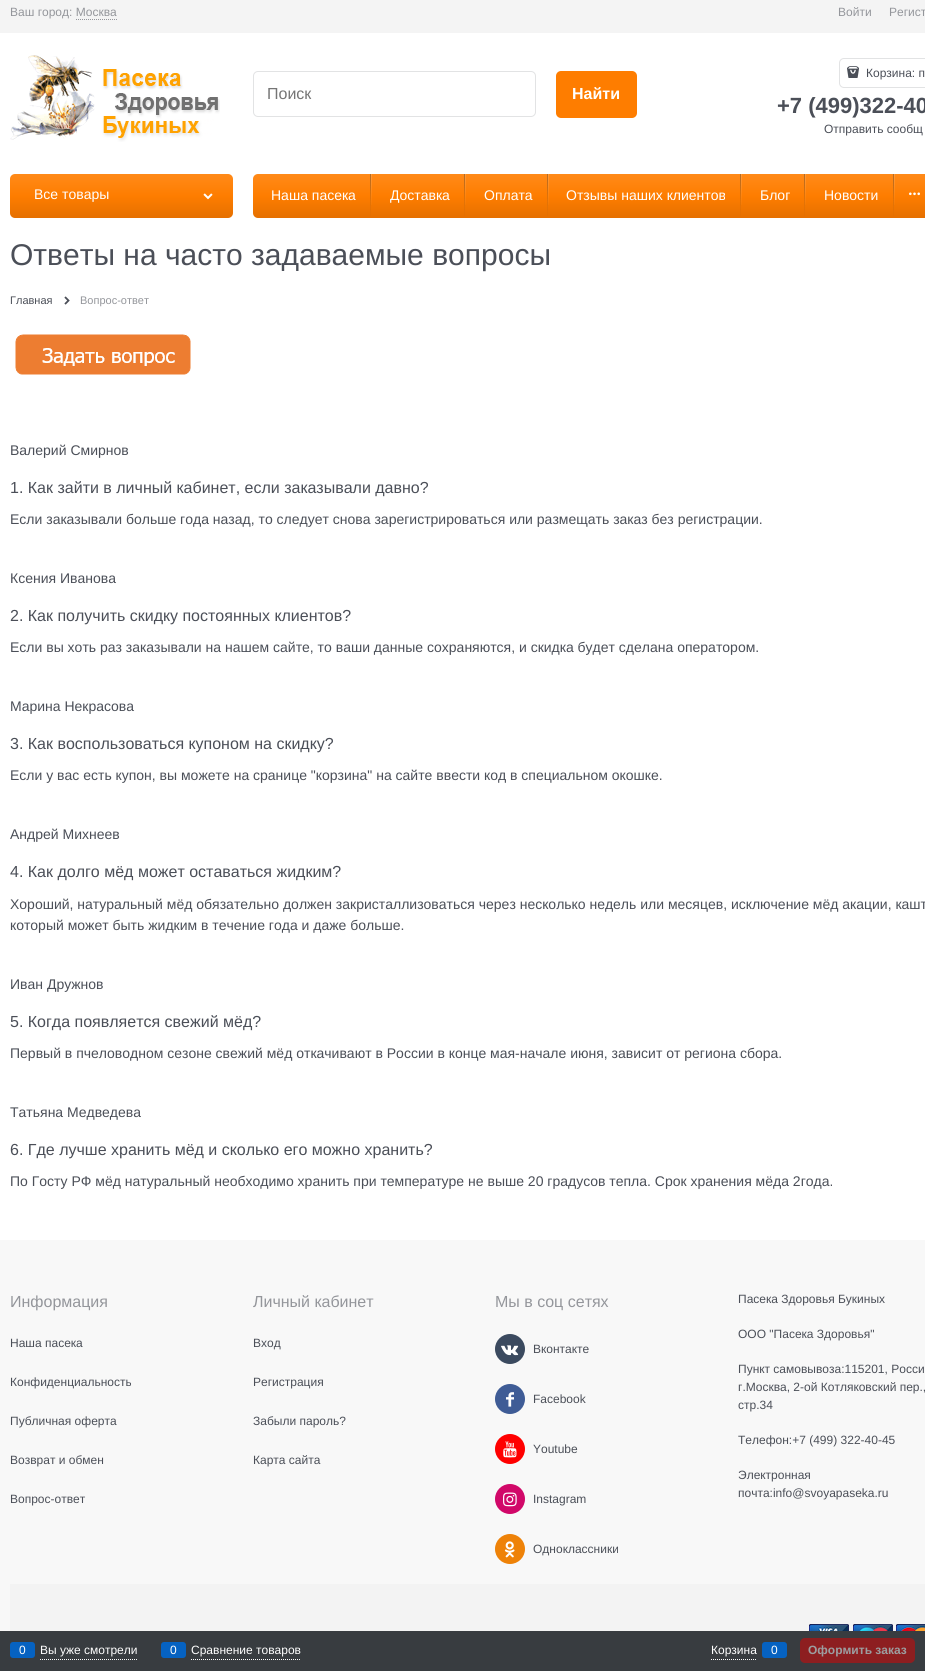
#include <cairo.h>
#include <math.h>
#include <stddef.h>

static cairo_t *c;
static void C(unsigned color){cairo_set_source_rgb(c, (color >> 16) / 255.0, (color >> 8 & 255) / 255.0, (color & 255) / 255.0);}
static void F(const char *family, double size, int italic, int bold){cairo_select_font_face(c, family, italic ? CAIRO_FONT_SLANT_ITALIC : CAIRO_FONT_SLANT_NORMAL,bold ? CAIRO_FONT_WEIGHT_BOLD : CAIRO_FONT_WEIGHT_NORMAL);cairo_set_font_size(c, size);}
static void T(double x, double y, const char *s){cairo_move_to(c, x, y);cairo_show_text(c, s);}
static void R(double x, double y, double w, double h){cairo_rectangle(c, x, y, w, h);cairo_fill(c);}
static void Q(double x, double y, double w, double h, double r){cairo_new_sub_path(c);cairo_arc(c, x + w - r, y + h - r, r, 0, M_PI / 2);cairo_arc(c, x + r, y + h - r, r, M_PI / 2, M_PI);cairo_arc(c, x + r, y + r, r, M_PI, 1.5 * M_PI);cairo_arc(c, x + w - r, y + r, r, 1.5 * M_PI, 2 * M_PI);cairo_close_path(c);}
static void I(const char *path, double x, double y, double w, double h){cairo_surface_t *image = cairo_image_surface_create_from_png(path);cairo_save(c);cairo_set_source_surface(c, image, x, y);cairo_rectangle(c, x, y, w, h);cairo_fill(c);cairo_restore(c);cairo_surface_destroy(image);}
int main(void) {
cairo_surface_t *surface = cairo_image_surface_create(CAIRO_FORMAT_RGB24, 925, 1671);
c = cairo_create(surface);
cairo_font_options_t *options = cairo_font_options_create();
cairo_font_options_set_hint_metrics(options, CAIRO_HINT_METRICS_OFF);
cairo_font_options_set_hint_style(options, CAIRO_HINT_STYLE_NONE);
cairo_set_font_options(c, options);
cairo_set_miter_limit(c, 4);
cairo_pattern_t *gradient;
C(0xffffff);
cairo_paint(c);
C(0xf4f4f4);
R(0,0,925,33);
F("Liberation Sans",12,0,0);
C(0x94969b);
T(10,16,"Ваш город: Москва");
cairo_new_path(c);
cairo_move_to(c,76,19.5);
cairo_line_to(c,117,19.5);
cairo_set_line_width(c,1);
cairo_set_dash(c,(double[]){1,1},2,0);
cairo_stroke(c);
T(838,16,"Войти");
T(889,16,"Регист");
I("1.png",10,55,210,87);
Q(253.5,71.5,282,45,4.5);
C(0xe2e3e4);
cairo_set_dash(c,NULL,0,0);
cairo_stroke(c);
F("Liberation Sans",16,0,0);
C(0x757575);
T(267,99,"Поиск");
C(0xfe7d00);
Q(556,71,81,47,5);
cairo_fill(c);
F("Liberation Sans",16,0,1);
C(0xffffff);
T(572,99,"Найти");
Q(839.5,58.5,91,29,4.5);
C(0xe2e3e4);
cairo_stroke(c);
I("2.png",847,66,12,12);
F("Liberation Sans",12,0,0);
C(0x4b4f58);
T(866,77,"Корзина: п");
F("Liberation Sans",22,0,1);
T(777,113,"+7 (499)322-40");
F("Liberation Sans",12,0,0);
T(824,133,"Отправить сообщ");
gradient = cairo_pattern_create_linear(122,174,122,218);
cairo_pattern_add_color_stop_rgba(gradient,0,1,0.541,0.098,1);
cairo_pattern_add_color_stop_rgba(gradient,.5,0.996,0.49,0,1);
cairo_pattern_add_color_stop_rgba(gradient,1,0.898,0.439,0,1);
cairo_set_source(c,gradient);
cairo_pattern_destroy(gradient);
Q(10,174,223,44,5);
cairo_fill(c);
F("Liberation Sans",14,0,0);
C(0xffffff);
T(34,199,"Все товары");
I("3.png",203,193,10,7);
gradient = cairo_pattern_create_linear(607,174,607,218);
cairo_pattern_add_color_stop_rgba(gradient,0,1,0.541,0.098,1);
cairo_pattern_add_color_stop_rgba(gradient,.5,0.996,0.49,0,1);
cairo_pattern_add_color_stop_rgba(gradient,1,0.898,0.439,0,1);
cairo_set_source(c,gradient);
cairo_pattern_destroy(gradient);
Q(253,174,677,44,5);
cairo_fill(c);
C(0xffffff);
T(271,200,"Наша пасека");
gradient = cairo_pattern_create_linear(372,174,372,218);
cairo_pattern_add_color_stop_rgba(gradient,0,1,1,1,.14);
cairo_pattern_add_color_stop_rgba(gradient,.72,1,1,1,.02);
cairo_pattern_add_color_stop_rgba(gradient,1,1,1,1,0);
cairo_set_source(c,gradient);
cairo_pattern_destroy(gradient);
R(371,174,1,31);
gradient = cairo_pattern_create_linear(371,174,371,218);
cairo_pattern_add_color_stop_rgba(gradient,0,0.224,0.224,0.224,.39);
cairo_pattern_add_color_stop_rgba(gradient,.17,0.224,0.224,0.224,.33);
cairo_pattern_add_color_stop_rgba(gradient,.61,0.224,0.224,0.224,.12);
cairo_pattern_add_color_stop_rgba(gradient,.96,0.224,0.224,0.224,.01);
cairo_pattern_add_color_stop_rgba(gradient,.98,1,1,1,.01);
cairo_pattern_add_color_stop_rgba(gradient,1,1,1,1,0);
cairo_set_source(c,gradient);
cairo_pattern_destroy(gradient);
R(370,174,1,44);
C(0xffffff);
T(390,200,"Доставка");
gradient = cairo_pattern_create_linear(466,174,466,218);
cairo_pattern_add_color_stop_rgba(gradient,0,1,1,1,.14);
cairo_pattern_add_color_stop_rgba(gradient,.72,1,1,1,.02);
cairo_pattern_add_color_stop_rgba(gradient,1,1,1,1,0);
cairo_set_source(c,gradient);
cairo_pattern_destroy(gradient);
R(465,174,1,31);
gradient = cairo_pattern_create_linear(465,174,465,218);
cairo_pattern_add_color_stop_rgba(gradient,0,0.224,0.224,0.224,.39);
cairo_pattern_add_color_stop_rgba(gradient,.17,0.224,0.224,0.224,.33);
cairo_pattern_add_color_stop_rgba(gradient,.61,0.224,0.224,0.224,.12);
cairo_pattern_add_color_stop_rgba(gradient,.96,0.224,0.224,0.224,.01);
cairo_pattern_add_color_stop_rgba(gradient,.98,1,1,1,.01);
cairo_pattern_add_color_stop_rgba(gradient,1,1,1,1,0);
cairo_set_source(c,gradient);
cairo_pattern_destroy(gradient);
R(464,174,1,44);
C(0xffffff);
T(484,200,"Оплата");
gradient = cairo_pattern_create_linear(549,174,549,218);
cairo_pattern_add_color_stop_rgba(gradient,0,1,1,1,.14);
cairo_pattern_add_color_stop_rgba(gradient,.72,1,1,1,.02);
cairo_pattern_add_color_stop_rgba(gradient,1,1,1,1,0);
cairo_set_source(c,gradient);
cairo_pattern_destroy(gradient);
R(548,174,1,31);
gradient = cairo_pattern_create_linear(548,174,548,218);
cairo_pattern_add_color_stop_rgba(gradient,0,0.224,0.224,0.224,.39);
cairo_pattern_add_color_stop_rgba(gradient,.17,0.224,0.224,0.224,.33);
cairo_pattern_add_color_stop_rgba(gradient,.61,0.224,0.224,0.224,.12);
cairo_pattern_add_color_stop_rgba(gradient,.96,0.224,0.224,0.224,.01);
cairo_pattern_add_color_stop_rgba(gradient,.98,1,1,1,.01);
cairo_pattern_add_color_stop_rgba(gradient,1,1,1,1,0);
cairo_set_source(c,gradient);
cairo_pattern_destroy(gradient);
R(547,174,1,44);
C(0xffffff);
T(566,200,"Отзывы наших клиентов");
gradient = cairo_pattern_create_linear(742,174,742,218);
cairo_pattern_add_color_stop_rgba(gradient,0,1,1,1,.14);
cairo_pattern_add_color_stop_rgba(gradient,.72,1,1,1,.02);
cairo_pattern_add_color_stop_rgba(gradient,1,1,1,1,0);
cairo_set_source(c,gradient);
cairo_pattern_destroy(gradient);
R(741,174,1,31);
gradient = cairo_pattern_create_linear(741,174,741,218);
cairo_pattern_add_color_stop_rgba(gradient,0,0.224,0.224,0.224,.39);
cairo_pattern_add_color_stop_rgba(gradient,.17,0.224,0.224,0.224,.33);
cairo_pattern_add_color_stop_rgba(gradient,.61,0.224,0.224,0.224,.12);
cairo_pattern_add_color_stop_rgba(gradient,.96,0.224,0.224,0.224,.01);
cairo_pattern_add_color_stop_rgba(gradient,.98,1,1,1,.01);
cairo_pattern_add_color_stop_rgba(gradient,1,1,1,1,0);
cairo_set_source(c,gradient);
cairo_pattern_destroy(gradient);
R(740,174,1,44);
C(0xffffff);
T(760,200,"Блог");
gradient = cairo_pattern_create_linear(806,174,806,218);
cairo_pattern_add_color_stop_rgba(gradient,0,1,1,1,.14);
cairo_pattern_add_color_stop_rgba(gradient,.72,1,1,1,.02);
cairo_pattern_add_color_stop_rgba(gradient,1,1,1,1,0);
cairo_set_source(c,gradient);
cairo_pattern_destroy(gradient);
R(805,174,1,31);
gradient = cairo_pattern_create_linear(805,174,805,218);
cairo_pattern_add_color_stop_rgba(gradient,0,0.224,0.224,0.224,.39);
cairo_pattern_add_color_stop_rgba(gradient,.17,0.224,0.224,0.224,.33);
cairo_pattern_add_color_stop_rgba(gradient,.61,0.224,0.224,0.224,.12);
cairo_pattern_add_color_stop_rgba(gradient,.96,0.224,0.224,0.224,.01);
cairo_pattern_add_color_stop_rgba(gradient,.98,1,1,1,.01);
cairo_pattern_add_color_stop_rgba(gradient,1,1,1,1,0);
cairo_set_source(c,gradient);
cairo_pattern_destroy(gradient);
R(804,174,1,44);
C(0xffffff);
T(824,200,"Новости");
gradient = cairo_pattern_create_linear(895,174,895,218);
cairo_pattern_add_color_stop_rgba(gradient,0,1,1,1,.14);
cairo_pattern_add_color_stop_rgba(gradient,.72,1,1,1,.02);
cairo_pattern_add_color_stop_rgba(gradient,1,1,1,1,0);
cairo_set_source(c,gradient);
cairo_pattern_destroy(gradient);
R(894,174,1,31);
gradient = cairo_pattern_create_linear(894,174,894,218);
cairo_pattern_add_color_stop_rgba(gradient,0,0.224,0.224,0.224,.39);
cairo_pattern_add_color_stop_rgba(gradient,.17,0.224,0.224,0.224,.33);
cairo_pattern_add_color_stop_rgba(gradient,.61,0.224,0.224,0.224,.12);
cairo_pattern_add_color_stop_rgba(gradient,.96,0.224,0.224,0.224,.01);
cairo_pattern_add_color_stop_rgba(gradient,.98,1,1,1,.01);
cairo_pattern_add_color_stop_rgba(gradient,1,1,1,1,0);
cairo_set_source(c,gradient);
cairo_pattern_destroy(gradient);
R(893,174,1,44);
I("4.png",909,192,11,4);
F("Liberation Sans",30,0,0);
C(0x4b4f58);
T(10,265,"Ответы на часто задаваемые вопросы");
F("Liberation Sans",11,0,0);
T(10,304,"Главная");
I("5.png",64,296,6,9);
C(0x94969b);
T(80,304,"Вопрос-ответ");
I("6.png",15,334,176,41);
F("Liberation Sans",14,0,0);
C(0x4b4f58);
T(10,455,"Валерий Смирнов");
F("Liberation Sans",16,0,0);
T(10,493,"1. Как зайти в личный кабинет, если заказывали давно?");
F("Liberation Sans",14,0,0);
T(10,524,"Если заказывали больше года назад, то следует снова зарегистрироваться или размещать заказ без регистрации.");
T(10,583,"Ксения Иванова");
F("Liberation Sans",16,0,0);
T(10,621,"2. Как получить скидку постоянных клиентов?");
F("Liberation Sans",14,0,0);
T(10,652,"Если вы хоть раз заказывали на нашем сайте, то ваши данные сохраняются, и скидка будет сделана оператором.");
T(10,711,"Марина Некрасова");
F("Liberation Sans",16,0,0);
T(10,749,"3. Как воспользоваться купоном на скидку?");
F("Liberation Sans",14,0,0);
T(10,780,"Если у вас есть купон, вы можете на сранице \"корзина\" на сайте ввести код в специальном окошке.");
T(10,839,"Андрей Михнеев");
F("Liberation Sans",16,0,0);
T(10,877,"4. Как долго мёд может оставаться жидким?");
F("Liberation Sans",14,0,0);
T(10,909,"Хороший, натуральный мёд обязательно должен закристаллизоваться через несколько недель или месяцев, исключение мёд акации, кашт");
T(10,930,"который может быть жидким в течение года и даже больше.");
T(10,989,"Иван Дружнов");
F("Liberation Sans",16,0,0);
T(10,1027,"5. Когда появляется свежий мёд?");
F("Liberation Sans",14,0,0);
T(10,1058,"Первый в пчеловодном сезоне свежий мёд откачивают в России в конце мая-начале июня, зависит от региона сбора.");
T(10,1117,"Татьяна Медведева");
F("Liberation Sans",16,0,0);
T(10,1155,"6. Где лучше хранить мёд и сколько его можно хранить?");
F("Liberation Sans",14,0,0);
T(10,1186,"По Госту РФ мёд натуральный необходимо хранить при температуре не выше 20 градусов тепла. Срок хранения мёда 2года.");
C(0xf8f8f8);
R(0,1240,925,391);
F("Liberation Sans",16,0,0);
C(0x94969b);
T(10,1307,"Информация");
F("Liberation Sans",12,0,0);
C(0x4b4f58);
T(10,1347,"Наша пасека");
T(10,1386,"Конфиденциальность");
T(10,1425,"Публичная оферта");
T(10,1464,"Возврат и обмен");
T(10,1503,"Вопрос-ответ");
F("Liberation Sans",16,0,0);
C(0x94969b);
T(253,1307,"Личный кабинет");
F("Liberation Sans",12,0,0);
C(0x4b4f58);
T(253,1347,"Вход");
T(253,1386,"Регистрация");
T(253,1425,"Забыли пароль?");
T(253,1464,"Карта сайта");
F("Liberation Sans",16,0,0);
C(0x94969b);
T(495,1307,"Мы в соц сетях");
C(0x3b4a5f);
cairo_new_path(c);
cairo_arc(c,510,1349,15,0,2 * M_PI);
cairo_fill(c);
I("7.png",501,1345,18,11);
F("Liberation Sans",12,0,0);
C(0x4b4f58);
T(533,1353,"Вконтакте");
C(0x3f5c96);
cairo_new_path(c);
cairo_arc(c,510,1399,15,0,2 * M_PI);
cairo_fill(c);
I("8.png",506,1392,8,15);
C(0x4b4f58);
T(533,1403,"Facebook");
C(0xff0000);
cairo_new_path(c);
cairo_arc(c,510,1449,15,0,2 * M_PI);
cairo_fill(c);
I("9.png",503,1441,14,17);
C(0x4b4f58);
T(533,1453,"Youtube");
C(0xd10869);
cairo_new_path(c);
cairo_arc(c,510,1499,15,0,2 * M_PI);
cairo_fill(c);
I("10.png",503,1492,14,15);
C(0x4b4f58);
T(533,1503,"Instagram");
C(0xee8208);
cairo_new_path(c);
cairo_arc(c,510,1549,15,0,2 * M_PI);
cairo_fill(c);
I("11.png",504,1541,11,17);
C(0x4b4f58);
T(533,1553,"Одноклассники");
T(738,1303,"Пасека Здоровья Букиных");
T(738,1338,"ООО \"Пасека Здоровья\"");
T(738,1373,"Пункт самовывоза:115201, Росси");
T(738,1391,"г.Москва, 2-ой Котляковский пер.,");
T(738,1409,"стр.34");
T(738,1444,"Телефон:+7 (499) 322-40-45");
T(738,1479,"Электронная");
T(738,1497,"почта:info@svoyapaseka.ru");
C(0xf3f3f3);
R(10,1584,915,47);
I("12.png",809,1624,40,7);
I("13.png",853,1624,40,7);
I("14.png",896,1624,29,7);
C(0x383c40);
R(0,1631,925,40);
cairo_new_path(c);
cairo_move_to(c,40,1659.5);
cairo_line_to(c,137,1659.5);
C(0xffffff);
cairo_set_dash(c,(double[]){1,1},2,0);
cairo_stroke(c);
C(0x0662c1);
Q(10,1642,25,16,3);
cairo_fill(c);
C(0xffffff);
T(19,1654,"0");
T(40,1654,"Вы уже смотрели");
cairo_new_path(c);
cairo_move_to(c,191,1659.5);
cairo_line_to(c,301,1659.5);
cairo_stroke(c);
C(0x0662c1);
Q(161,1642,25,16,3);
cairo_fill(c);
C(0xffffff);
T(170,1654,"0");
T(191,1654,"Сравнение товаров");
cairo_new_path(c);
cairo_move_to(c,711,1659.5);
cairo_line_to(c,757,1659.5);
cairo_stroke(c);
T(711,1654,"Корзина");
C(0x0662c1);
Q(762,1642,25,16,3);
cairo_fill(c);
C(0xffffff);
T(771,1654,"0");
C(0x8d1e20);
Q(800,1638,115,25,5);
cairo_fill(c);
F("Liberation Sans",12,0,1);
C(0x9c9ea0);
T(808,1654,"Оформить заказ");
cairo_surface_write_to_png(surface, "o.png");
cairo_font_options_destroy(options);
cairo_destroy(c);
cairo_surface_destroy(surface);
return 0;
}
